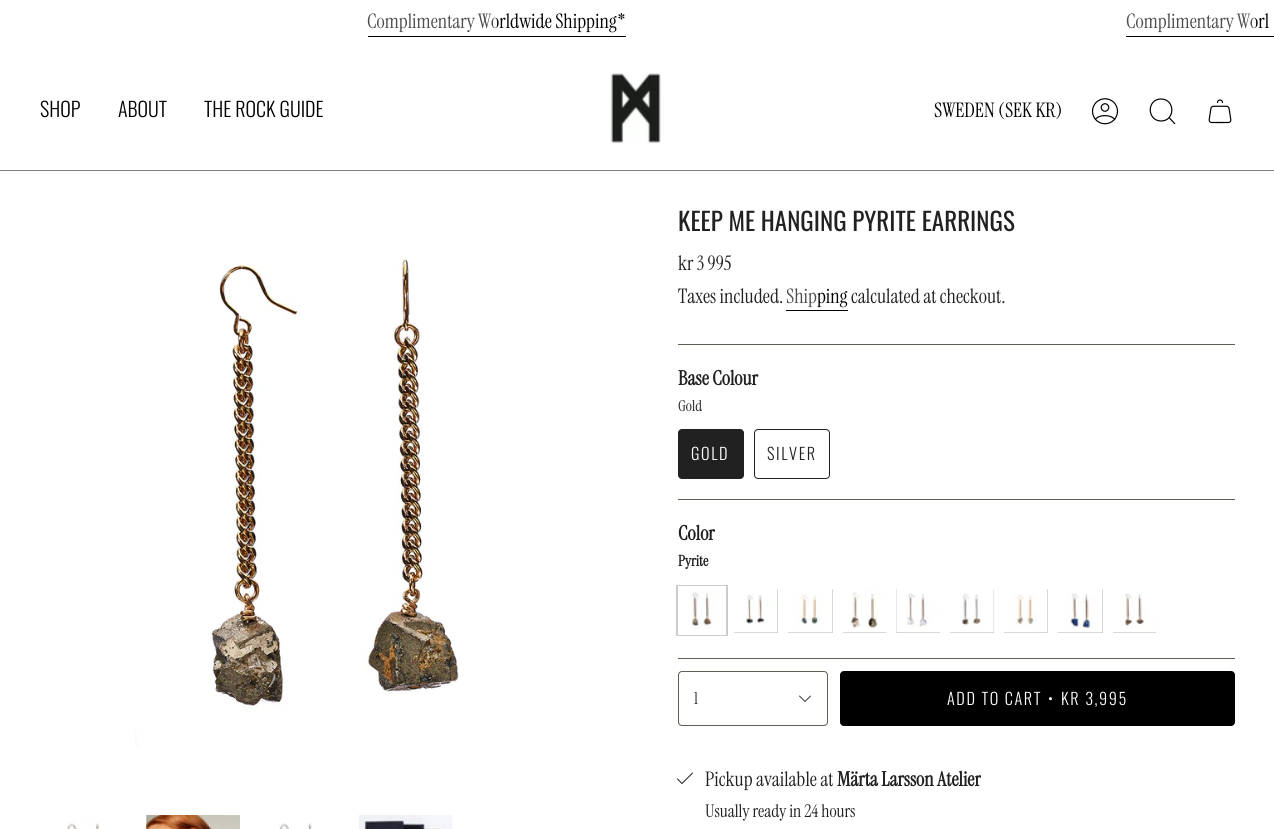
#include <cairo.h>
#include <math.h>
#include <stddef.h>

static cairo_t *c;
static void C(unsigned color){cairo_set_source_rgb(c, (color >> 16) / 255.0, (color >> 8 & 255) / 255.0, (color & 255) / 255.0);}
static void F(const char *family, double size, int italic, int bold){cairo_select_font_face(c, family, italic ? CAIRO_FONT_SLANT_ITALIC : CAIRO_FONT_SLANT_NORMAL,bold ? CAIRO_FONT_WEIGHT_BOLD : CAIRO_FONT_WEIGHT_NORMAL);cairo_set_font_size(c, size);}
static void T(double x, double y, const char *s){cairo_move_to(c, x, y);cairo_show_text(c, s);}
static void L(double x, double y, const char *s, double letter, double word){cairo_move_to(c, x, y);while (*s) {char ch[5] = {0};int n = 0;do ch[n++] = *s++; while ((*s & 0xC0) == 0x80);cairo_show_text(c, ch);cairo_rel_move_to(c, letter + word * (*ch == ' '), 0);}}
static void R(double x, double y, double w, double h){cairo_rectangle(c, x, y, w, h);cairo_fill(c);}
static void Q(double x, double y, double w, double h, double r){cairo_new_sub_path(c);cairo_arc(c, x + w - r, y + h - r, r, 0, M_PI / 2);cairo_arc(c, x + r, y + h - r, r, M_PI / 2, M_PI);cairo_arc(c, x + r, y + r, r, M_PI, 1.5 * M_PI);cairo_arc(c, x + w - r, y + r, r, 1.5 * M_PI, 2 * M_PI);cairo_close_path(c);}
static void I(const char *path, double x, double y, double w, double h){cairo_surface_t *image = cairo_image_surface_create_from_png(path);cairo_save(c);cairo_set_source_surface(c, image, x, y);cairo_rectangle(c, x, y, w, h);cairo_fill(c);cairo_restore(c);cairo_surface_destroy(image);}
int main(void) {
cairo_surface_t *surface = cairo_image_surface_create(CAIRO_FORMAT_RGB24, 1274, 829);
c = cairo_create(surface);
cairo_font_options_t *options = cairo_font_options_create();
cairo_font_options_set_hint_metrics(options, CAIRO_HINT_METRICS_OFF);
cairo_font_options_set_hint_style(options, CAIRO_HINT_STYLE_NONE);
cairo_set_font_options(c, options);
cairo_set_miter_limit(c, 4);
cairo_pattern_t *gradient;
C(0xffffff);
cairo_paint(c);
F("Instrument Serif",20,0,0);
gradient = cairo_pattern_create_linear(367,23,626,22);
cairo_pattern_add_color_stop_rgba(gradient,0,0.302,0.302,0.302,1);
cairo_pattern_add_color_stop_rgba(gradient,.5,0.302,0.302,0.302,1);
cairo_pattern_add_color_stop_rgba(gradient,.5,0,0,0,1);
cairo_pattern_add_color_stop_rgba(gradient,1,0,0,0,1);
cairo_set_source(c,gradient);
cairo_pattern_destroy(gradient);
T(367,28,"Complimentary Worldwide Shipping*");
C(0x000000);
R(368,36,258,1);
gradient = cairo_pattern_create_linear(1126,23,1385,22);
cairo_pattern_add_color_stop_rgba(gradient,0,0.302,0.302,0.302,1);
cairo_pattern_add_color_stop_rgba(gradient,.5,0.302,0.302,0.302,1);
cairo_pattern_add_color_stop_rgba(gradient,.5,0,0,0,1);
cairo_pattern_add_color_stop_rgba(gradient,1,0,0,0,1);
cairo_set_source(c,gradient);
cairo_pattern_destroy(gradient);
T(1126,28,"Complimentary Worl");
C(0x000000);
R(1126,36,148,1);
F("Oswald Light",20,0,0);
T(40,117,"SHOP");
T(118,117,"ABOUT");
T(204,117,"THE ROCK GUIDE");
I("1.png",610,73,51,71);
F("Instrument Serif",20,0,0);
T(934,117,"SWEDEN (SEK KR)");
I("2.png",1091,98,28,27);
cairo_new_path(c);
cairo_move_to(c,1161,99);
cairo_curve_to(c,1175.5,99,1175.5,121.5,1160.5,121);
cairo_curve_to(c,1146.5,120,1147,99,1161,99);
cairo_close_path(c);
cairo_move_to(c,1169,117.5);
cairo_line_to(c,1175,124);
cairo_set_line_width(c,1.2);
cairo_stroke(c);
I("3.png",1208,99,24,25);
C(0x808080);
R(0,170,1274,1);
I("4.png",135,258,324,489);
I("5.png",67,821,33,8);
I("6.png",146,815,94,14);
I("7.png",279,822,33,7);
I("8.png",358,815,95,14);
F("Oswald",25,0,0);
C(0x212121);
T(678,231,"KEEP ME HANGING PYRITE EARRINGS");
F("Instrument Serif",20,0,0);
T(678,270,"kr 3 995");
T(678,303,"Taxes included.");
gradient = cairo_pattern_create_linear(786,297,848,297);
cairo_pattern_add_color_stop_rgba(gradient,0,0.302,0.302,0.302,1);
cairo_pattern_add_color_stop_rgba(gradient,.5,0.302,0.302,0.302,1);
cairo_pattern_add_color_stop_rgba(gradient,.5,0,0,0,1);
cairo_pattern_add_color_stop_rgba(gradient,1,0,0,0,1);
cairo_set_source(c,gradient);
cairo_pattern_destroy(gradient);
T(786,303,"Shipping");
C(0x000000);
R(786,310,62,1);
C(0x212121);
T(851,303,"calculated at checkout.");
C(0x5e5e54);
R(678,344,557,1);
R(678,499,557,1);
F("Instrument Serif",20,0,1);
C(0x212121);
T(678,385,"Base Colour");
F("Instrument Serif",15,0,0);
T(678,411,"Gold");
Q(678.5,429.5,65,49,3.5);
cairo_fill_preserve(c);
cairo_set_line_width(c,1);
cairo_stroke(c);
F("Oswald Light",16.25,0,0);
C(0xffffff);
L(691,460,"GOLD",1.6,0);
Q(754.5,429.5,75,49,3.5);
C(0x212121);
cairo_stroke(c);
L(767,460,"SILVER",1.6,0);
C(0x5e5e54);
R(678,658,557,1);
F("Instrument Serif",20,0,1);
C(0x212121);
T(678,540,"Color");
F("Instrument Serif",15,0,1);
T(678,566,"Pyrite");
C(0xcccccc);
R(676,585,52,51);
cairo_rectangle(c,679.5,587.5,45,46);
C(0xffffff);
cairo_set_line_width(c,3);
cairo_stroke(c);
I("9.png",681,589,42,43);
C(0xcccccc);
R(734,589,44,44);
I("10.png",734,589,44,44);
R(788,589,45,44);
I("11.png",788,589,45,44);
R(843,632,43,1);
I("12.png",843,589,43,44);
R(896,589,44,44);
I("13.png",896,589,44,44);
R(950,589,44,44);
I("14.png",950,589,44,44);
R(1004,589,44,44);
I("15.png",1004,589,44,44);
R(1058,589,45,44);
I("16.png",1058,589,45,44);
R(1113,632,43,1);
I("17.png",1113,589,43,44);
Q(678.5,671.5,149,54,3.5);
C(0x5e5e54);
cairo_set_line_width(c,1);
cairo_stroke(c);
F("Instrument Serif",16.25,0,0);
C(0x212121);
T(694,704,"1");
cairo_new_path(c);
cairo_move_to(c,799.5,696);
cairo_line_to(c,805,701.5);
cairo_line_to(c,810.5,696);
cairo_set_line_width(c,.9);
cairo_set_line_cap(c,CAIRO_LINE_CAP_ROUND);
cairo_set_line_join(c,CAIRO_LINE_JOIN_ROUND);
cairo_stroke(c);
C(0x000000);
Q(840.5,671.5,394,54,3.5);
cairo_fill_preserve(c);
cairo_set_line_width(c,1);
cairo_set_line_cap(c,CAIRO_LINE_CAP_BUTT);
cairo_set_line_join(c,CAIRO_LINE_JOIN_MITER);
cairo_stroke(c);
F("Oswald Light",16.25,0,0);
C(0xffffff);
L(947,705,"ADD TO CART",1.6,0);
L(1048,705,"•",1.6,0);
L(1061,705,"KR 3,995",1.6,0);
cairo_new_path(c);
cairo_move_to(c,677.5,779);
cairo_line_to(c,682,783.5);
cairo_line_to(c,692.5,773);
C(0x212121);
cairo_set_line_cap(c,CAIRO_LINE_CAP_ROUND);
cairo_set_line_join(c,CAIRO_LINE_JOIN_ROUND);
cairo_stroke(c);
F("Instrument Serif",20,0,0);
T(705,786,"Pickup available at");
F("Instrument Serif",20,0,1);
T(837,786,"Märta Larsson Atelier");
F("Instrument Serif",17.5,0,0);
T(705,817,"Usually ready in 24 hours");
cairo_surface_write_to_png(surface, "o.png");
cairo_font_options_destroy(options);
cairo_destroy(c);
cairo_surface_destroy(surface);
return 0;
}
